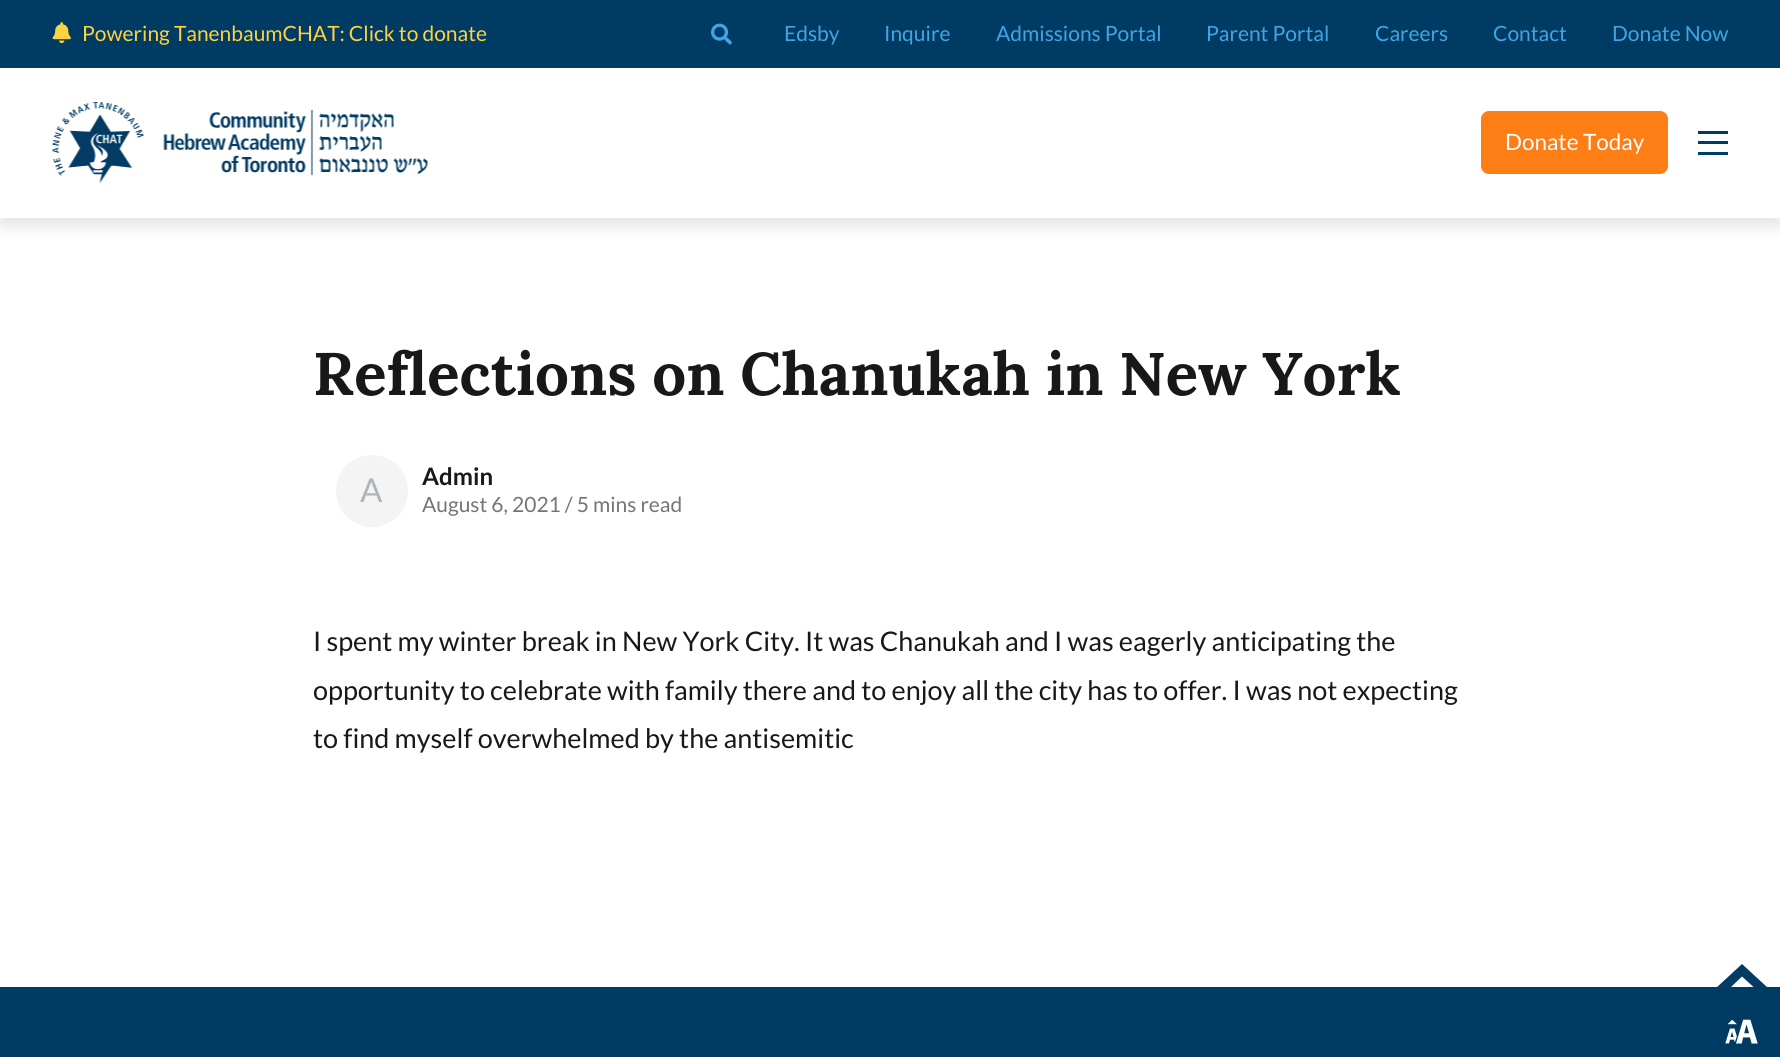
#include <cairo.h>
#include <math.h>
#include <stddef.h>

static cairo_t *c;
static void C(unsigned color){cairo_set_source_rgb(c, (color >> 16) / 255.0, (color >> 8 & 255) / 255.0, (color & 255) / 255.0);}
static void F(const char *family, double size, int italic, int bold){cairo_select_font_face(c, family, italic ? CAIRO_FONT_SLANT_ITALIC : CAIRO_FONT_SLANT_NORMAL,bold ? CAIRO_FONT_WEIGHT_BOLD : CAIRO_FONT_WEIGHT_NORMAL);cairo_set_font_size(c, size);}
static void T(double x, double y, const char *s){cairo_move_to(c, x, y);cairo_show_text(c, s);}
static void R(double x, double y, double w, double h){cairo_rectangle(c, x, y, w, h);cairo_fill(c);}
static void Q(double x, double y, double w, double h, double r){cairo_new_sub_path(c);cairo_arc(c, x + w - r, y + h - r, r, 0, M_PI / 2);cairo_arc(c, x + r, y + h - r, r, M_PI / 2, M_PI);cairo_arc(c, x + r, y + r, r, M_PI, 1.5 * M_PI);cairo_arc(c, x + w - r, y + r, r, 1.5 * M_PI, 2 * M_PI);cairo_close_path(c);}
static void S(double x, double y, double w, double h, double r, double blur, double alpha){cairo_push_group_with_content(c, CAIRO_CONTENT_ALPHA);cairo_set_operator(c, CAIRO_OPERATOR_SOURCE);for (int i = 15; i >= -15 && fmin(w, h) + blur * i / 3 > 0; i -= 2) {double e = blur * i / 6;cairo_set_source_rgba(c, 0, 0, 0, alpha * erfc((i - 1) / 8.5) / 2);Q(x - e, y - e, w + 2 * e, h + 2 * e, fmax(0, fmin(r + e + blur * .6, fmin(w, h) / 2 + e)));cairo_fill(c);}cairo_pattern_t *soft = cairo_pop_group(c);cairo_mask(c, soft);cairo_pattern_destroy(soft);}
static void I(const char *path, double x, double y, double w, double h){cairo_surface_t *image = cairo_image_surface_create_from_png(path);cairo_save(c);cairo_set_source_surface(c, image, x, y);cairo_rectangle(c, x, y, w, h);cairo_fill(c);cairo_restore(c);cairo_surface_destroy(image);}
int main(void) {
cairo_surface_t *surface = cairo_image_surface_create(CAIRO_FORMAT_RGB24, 1780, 1057);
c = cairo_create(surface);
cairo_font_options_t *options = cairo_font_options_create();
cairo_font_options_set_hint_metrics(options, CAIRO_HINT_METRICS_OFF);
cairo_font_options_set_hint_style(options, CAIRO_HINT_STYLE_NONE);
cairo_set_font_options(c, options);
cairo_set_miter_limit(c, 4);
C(0xffffff);
cairo_paint(c);
C(0x003b64);
R(0,0,1780,68);
I("1.png",52,22,19,22);
F("Lato",21,0,0);
C(0xfed141);
T(82,41,"Powering TanenbaumCHAT: Click to donate");
I("2.png",711,23,21,22);
C(0x42a4e4);
T(784,41,"Edsby");
T(884,41,"Inquire");
T(996,41,"Admissions Portal");
T(1206,41,"Parent Portal");
T(1375,41,"Careers");
T(1493,41,"Contact");
T(1612,41,"Donate Now");
cairo_save(c);
cairo_set_fill_rule(c,CAIRO_FILL_RULE_EVEN_ODD);
cairo_new_path(c);
cairo_move_to(c,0,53);
cairo_line_to(c,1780,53);
cairo_line_to(c,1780,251);
cairo_line_to(c,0,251);
cairo_close_path(c);
cairo_move_to(c,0,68);
cairo_line_to(c,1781,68);
cairo_line_to(c,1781,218);
cairo_line_to(c,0,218);
cairo_close_path(c);
cairo_clip(c);
C(0x000000);
S(0,77,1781,150,0,7.5,.1);
cairo_restore(c);
cairo_set_source_rgba(c,1,1,1,0.7);
R(0,217,1780,1);
I("3.png",52,102,376,81);
C(0xfd7e14);
Q(1482,112,185,61,7);
cairo_fill_preserve(c);
cairo_stroke(c);
F("Lato",22.5,0,0);
C(0xffffff);
T(1505,150,"Donate Today");
C(0x003b64);
R(1698,131,30,3);
R(1698,141,30,3);
R(1698,152,30,3);
F("Lora",60,0,1);
C(0x181818);
T(313,395,"Reflections on Chanukah in New York");
C(0xf4f4f4);
cairo_new_path(c);
cairo_arc(c,372,491,36,0,2 * M_PI);
cairo_fill(c);
F("Lato",33,0,0);
C(0xadb5bd);
T(360,502,"A");
F("Lato",24,0,1);
C(0x181818);
T(422,485,"Admin");
F("Lato",21,0,0);
C(0x757575);
T(422,512,"August 6, 2021 / 5 mins read");
F("Lato",27,0,0);
C(0x181818);
T(313,651,"I spent my winter break in New York City. It was Chanukah and I was eagerly anticipating the");
T(313,700,"opportunity to celebrate with family there and to enjoy all the city has to offer. I was not expecting");
T(313,748,"to find myself overwhelmed by the antisemitic");
C(0x003b64);
R(0,987,1780,70);
I("4.png",1725,1019,33,25);
C(0x023b64);
cairo_new_path(c);
cairo_move_to(c,1742,964);
cairo_line_to(c,1768,988);
cairo_line_to(c,1716,988);
cairo_close_path(c);
cairo_fill(c);
C(0xffffff);
cairo_new_path(c);
cairo_move_to(c,1742,976.5);
cairo_line_to(c,1753.5,987);
cairo_line_to(c,1731,987);
cairo_close_path(c);
cairo_fill(c);
cairo_surface_write_to_png(surface, "o.png");
cairo_font_options_destroy(options);
cairo_destroy(c);
cairo_surface_destroy(surface);
return 0;
}
